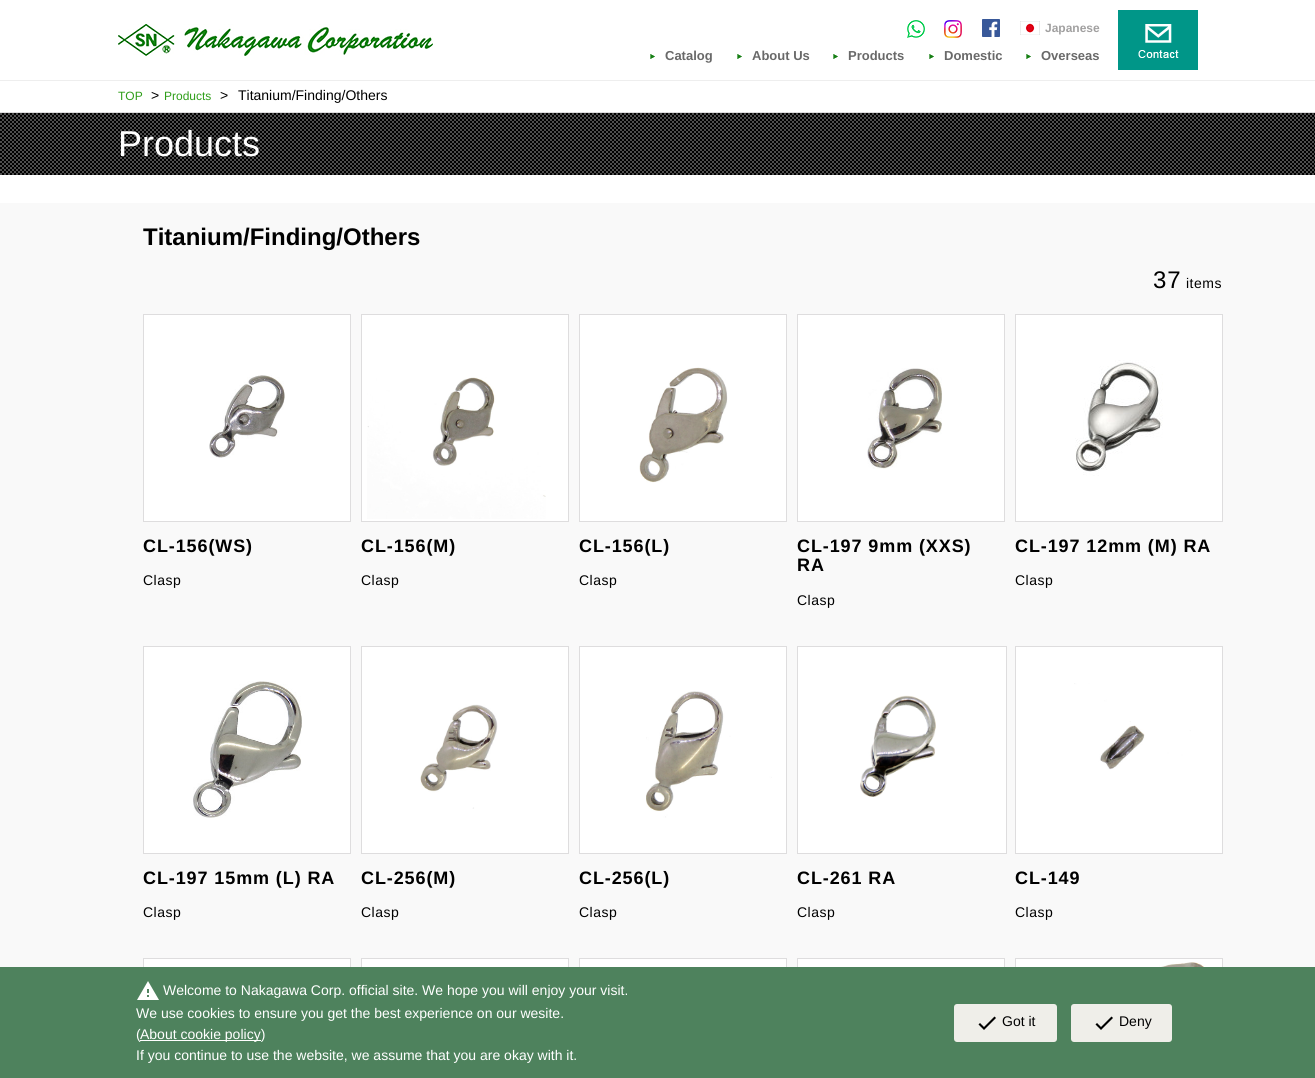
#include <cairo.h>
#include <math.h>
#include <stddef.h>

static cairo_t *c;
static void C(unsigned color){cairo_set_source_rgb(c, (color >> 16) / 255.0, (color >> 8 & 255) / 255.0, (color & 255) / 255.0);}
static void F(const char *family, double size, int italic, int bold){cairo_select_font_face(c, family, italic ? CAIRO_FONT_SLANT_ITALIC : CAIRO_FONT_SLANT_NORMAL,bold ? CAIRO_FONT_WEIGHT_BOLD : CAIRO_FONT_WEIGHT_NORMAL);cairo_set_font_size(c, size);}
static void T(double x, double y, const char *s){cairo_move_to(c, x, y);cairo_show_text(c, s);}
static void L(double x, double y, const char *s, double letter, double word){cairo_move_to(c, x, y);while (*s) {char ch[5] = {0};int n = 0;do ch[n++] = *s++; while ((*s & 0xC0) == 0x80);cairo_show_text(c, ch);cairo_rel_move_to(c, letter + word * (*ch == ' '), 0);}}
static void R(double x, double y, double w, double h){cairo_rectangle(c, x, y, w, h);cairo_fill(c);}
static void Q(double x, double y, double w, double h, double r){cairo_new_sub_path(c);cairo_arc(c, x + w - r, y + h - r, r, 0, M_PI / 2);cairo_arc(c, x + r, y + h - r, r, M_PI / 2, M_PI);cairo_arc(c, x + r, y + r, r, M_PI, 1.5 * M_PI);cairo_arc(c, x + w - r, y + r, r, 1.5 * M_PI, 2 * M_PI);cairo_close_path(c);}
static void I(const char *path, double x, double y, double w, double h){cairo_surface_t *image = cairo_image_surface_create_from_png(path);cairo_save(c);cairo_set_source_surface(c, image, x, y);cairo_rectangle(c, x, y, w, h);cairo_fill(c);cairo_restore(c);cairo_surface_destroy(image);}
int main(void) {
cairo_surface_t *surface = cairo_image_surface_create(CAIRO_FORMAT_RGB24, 1315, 1078);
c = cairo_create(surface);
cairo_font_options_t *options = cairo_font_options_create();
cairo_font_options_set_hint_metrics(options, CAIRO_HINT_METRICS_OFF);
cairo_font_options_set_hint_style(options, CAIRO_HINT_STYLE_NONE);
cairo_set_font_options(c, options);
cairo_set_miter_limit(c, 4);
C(0xffffff);
cairo_paint(c);
C(0xeeeeee);
R(0,80,1315,1);
I("1.png",118,24,315,32);
I("2.png",907,20,18,18);
I("3.png",944,20,18,18);
I("4.png",982,19,18,18);
I("5.png",1020,21,20,14);
F("Liberation Sans",12,0,1);
C(0xa1a0a0);
T(1045,32,"Japanese");
I("6.png",650,54,5,5);
F("Liberation Sans",13,0,1);
C(0x696969);
T(665,60,"Catalog");
I("6.png",737,54,5,5);
T(752,60,"About Us");
I("6.png",833,54,5,5);
T(848,60,"Products");
I("6.png",929,54,5,5);
T(944,60,"Domestic");
I("6.png",1026,54,5,5);
T(1041,60,"Overseas");
C(0x009688);
R(1118,10,80,60);
I("7.png",1138,24,41,34);
C(0xdeddde);
R(0,112,1315,1);
F("Liberation Sans",12,0,0);
C(0x2f9e19);
T(118,100,"TOP");
F("Liberation Sans",14,0,0);
C(0x000000);
T(151,100,">");
F("Liberation Sans",12,0,0);
C(0x2f9e19);
T(164,100,"Products");
F("Liberation Sans",14,0,0);
C(0x000000);
T(220,100,">");
T(238,100,"Titanium/Finding/Others");
I("8.png",0,113,1315,62);
F("Liberation Sans",36,0,0);
C(0xffffff);
T(118,156,"Products");
C(0xf9f9f9);
R(0,203,1315,764);
F("Liberation Sans",24,0,1);
C(0x000000);
T(143,245,"Titanium/Finding/Others");
F("Liberation Sans",24,0,0);
L(1153,288,"37",1,0);
F("Liberation Sans",14,0,0);
L(1186,288,"items",.5,0);
C(0xffffff);
cairo_rectangle(c,143.5,314.5,207,207);
cairo_fill_preserve(c);
C(0xdeddde);
cairo_set_line_width(c,1);
cairo_stroke(c);
I("9.png",209,375,76,83);
F("Liberation Sans",18,0,1);
C(0x000000);
L(143,552,"CL-156(WS)",.9,0);
F("Liberation Sans",14,0,0);
L(143,585,"Clasp",.5,0);
C(0xffffff);
cairo_rectangle(c,361.5,314.5,207,207);
cairo_fill_preserve(c);
C(0xdeddde);
cairo_stroke(c);
I("10.png",367,377,179,142);
F("Liberation Sans",18,0,1);
C(0x000000);
L(361,552,"CL-156(M)",.9,0);
F("Liberation Sans",14,0,0);
L(361,585,"Clasp",.5,0);
C(0xffffff);
cairo_rectangle(c,579.5,314.5,207,207);
cairo_fill_preserve(c);
C(0xdeddde);
cairo_stroke(c);
I("11.png",639,367,89,116);
F("Liberation Sans",18,0,1);
C(0x000000);
L(579,552,"CL-156(L)",.9,0);
F("Liberation Sans",14,0,0);
L(579,585,"Clasp",.5,0);
C(0xffffff);
cairo_rectangle(c,797.5,314.5,207,207);
cairo_fill_preserve(c);
C(0xdeddde);
cairo_stroke(c);
I("12.png",867,368,75,101);
F("Liberation Sans",18,0,1);
C(0x000000);
L(797,552,"CL-197 9mm (XXS)",.9,0);
L(797,571,"RA",.9,0);
F("Liberation Sans",14,0,0);
L(797,605,"Clasp",.5,0);
C(0xffffff);
cairo_rectangle(c,1015.5,314.5,207,207);
cairo_fill_preserve(c);
C(0xdeddde);
cairo_stroke(c);
I("13.png",1075,360,88,116);
F("Liberation Sans",18,0,1);
C(0x000000);
L(1015,552,"CL-197 12mm (M) RA",.9,0);
F("Liberation Sans",14,0,0);
L(1015,585,"Clasp",.5,0);
C(0xffffff);
cairo_rectangle(c,143.5,646.5,207,207);
cairo_fill_preserve(c);
C(0xdeddde);
cairo_stroke(c);
I("14.png",193,681,109,137);
F("Liberation Sans",18,0,1);
C(0x000000);
L(143,884,"CL-197 15mm (L) RA",.9,0);
F("Liberation Sans",14,0,0);
L(143,917,"Clasp",.5,0);
C(0xffffff);
cairo_rectangle(c,361.5,646.5,207,207);
cairo_fill_preserve(c);
C(0xdeddde);
cairo_stroke(c);
I("15.png",420,704,78,105);
F("Liberation Sans",18,0,1);
C(0x000000);
L(361,884,"CL-256(M)",.9,0);
F("Liberation Sans",14,0,0);
L(361,917,"Clasp",.5,0);
C(0xffffff);
cairo_rectangle(c,579.5,646.5,207,207);
cairo_fill_preserve(c);
C(0xdeddde);
cairo_stroke(c);
I("16.png",646,691,126,127);
F("Liberation Sans",18,0,1);
C(0x000000);
L(579,884,"CL-256(L)",.9,0);
F("Liberation Sans",14,0,0);
L(579,917,"Clasp",.5,0);
C(0xffffff);
cairo_rectangle(c,797.5,646.5,209,207);
cairo_fill_preserve(c);
C(0xdeddde);
cairo_stroke(c);
I("17.png",860,695,76,102);
F("Liberation Sans",18,0,1);
C(0x000000);
L(797,884,"CL-261 RA",.9,0);
F("Liberation Sans",14,0,0);
L(797,917,"Clasp",.5,0);
C(0xffffff);
cairo_rectangle(c,1015.5,646.5,207,207);
cairo_fill_preserve(c);
C(0xdeddde);
cairo_stroke(c);
I("18.png",1074,683,117,87);
F("Liberation Sans",18,0,1);
C(0x000000);
L(1015,884,"CL-149",.9,0);
F("Liberation Sans",14,0,0);
L(1015,917,"Clasp",.5,0);
C(0xffffff);
R(144,959,206,8);
cairo_rectangle(c,143.5,958.5,207,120);
C(0xdeddde);
cairo_stroke(c);
C(0xffffff);
R(362,959,206,8);
cairo_rectangle(c,361.5,958.5,207,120);
C(0xdeddde);
cairo_stroke(c);
C(0xffffff);
R(580,959,206,8);
cairo_rectangle(c,579.5,958.5,207,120);
C(0xdeddde);
cairo_stroke(c);
C(0xffffff);
R(798,959,206,8);
cairo_rectangle(c,797.5,958.5,207,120);
C(0xdeddde);
cairo_stroke(c);
C(0xffffff);
R(1016,959,206,8);
cairo_rectangle(c,1015.5,958.5,207,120);
C(0xdeddde);
cairo_stroke(c);
I("19.png",1054,962,159,5);
C(0x4e825d);
R(0,967,1315,111);
I("20.png",137,981,22,19);
C(0xffffff);
T(163,995,"Welcome to Nakagawa Corp. official site. We hope you will enjoy your visit.");
T(136,1018,"We use cookies to ensure you get the best experience on our wesite.");
T(136,1039,"(");
R(140,1040,121,1);
T(140,1039,"About cookie policy)");
T(136,1060,"If you continue to use the website, we assume that you are okay with it.");
C(0xefeee9);
Q(954,1004,103,38,3);
cairo_fill(c);
C(0x000000);
cairo_new_path(c);
cairo_move_to(c,984,1027);
cairo_line_to(c,994.5,1016.5);
cairo_line_to(c,996,1018);
cairo_line_to(c,984,1030);
cairo_line_to(c,978.5,1024.5);
cairo_line_to(c,980,1023);
cairo_close_path(c);
cairo_fill(c);
T(1002,1026,"Got it");
C(0xefeee9);
Q(1071,1004,101,38,3);
cairo_fill(c);
C(0x000000);
cairo_new_path(c);
cairo_move_to(c,1101,1027);
cairo_line_to(c,1111.5,1016.5);
cairo_line_to(c,1113,1018);
cairo_line_to(c,1101,1030);
cairo_line_to(c,1095.5,1024.5);
cairo_line_to(c,1097,1023);
cairo_close_path(c);
cairo_fill(c);
T(1119,1026,"Deny");
cairo_surface_write_to_png(surface, "o.png");
cairo_font_options_destroy(options);
cairo_destroy(c);
cairo_surface_destroy(surface);
return 0;
}
